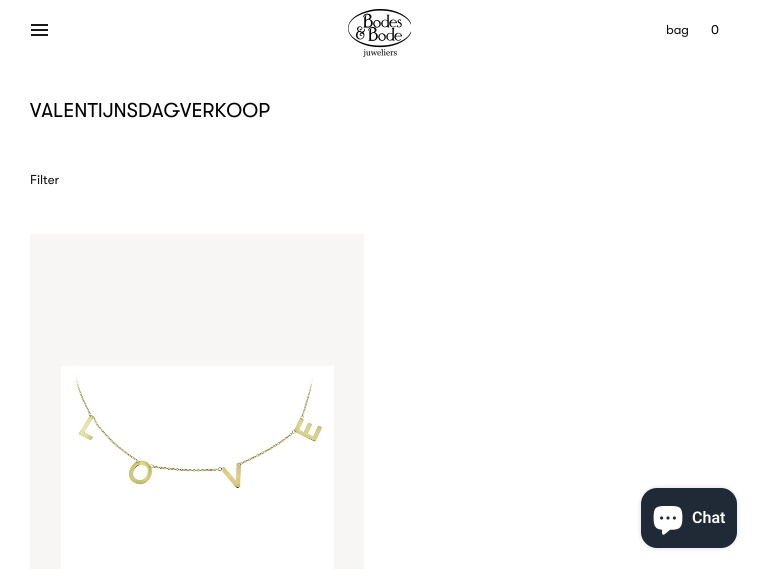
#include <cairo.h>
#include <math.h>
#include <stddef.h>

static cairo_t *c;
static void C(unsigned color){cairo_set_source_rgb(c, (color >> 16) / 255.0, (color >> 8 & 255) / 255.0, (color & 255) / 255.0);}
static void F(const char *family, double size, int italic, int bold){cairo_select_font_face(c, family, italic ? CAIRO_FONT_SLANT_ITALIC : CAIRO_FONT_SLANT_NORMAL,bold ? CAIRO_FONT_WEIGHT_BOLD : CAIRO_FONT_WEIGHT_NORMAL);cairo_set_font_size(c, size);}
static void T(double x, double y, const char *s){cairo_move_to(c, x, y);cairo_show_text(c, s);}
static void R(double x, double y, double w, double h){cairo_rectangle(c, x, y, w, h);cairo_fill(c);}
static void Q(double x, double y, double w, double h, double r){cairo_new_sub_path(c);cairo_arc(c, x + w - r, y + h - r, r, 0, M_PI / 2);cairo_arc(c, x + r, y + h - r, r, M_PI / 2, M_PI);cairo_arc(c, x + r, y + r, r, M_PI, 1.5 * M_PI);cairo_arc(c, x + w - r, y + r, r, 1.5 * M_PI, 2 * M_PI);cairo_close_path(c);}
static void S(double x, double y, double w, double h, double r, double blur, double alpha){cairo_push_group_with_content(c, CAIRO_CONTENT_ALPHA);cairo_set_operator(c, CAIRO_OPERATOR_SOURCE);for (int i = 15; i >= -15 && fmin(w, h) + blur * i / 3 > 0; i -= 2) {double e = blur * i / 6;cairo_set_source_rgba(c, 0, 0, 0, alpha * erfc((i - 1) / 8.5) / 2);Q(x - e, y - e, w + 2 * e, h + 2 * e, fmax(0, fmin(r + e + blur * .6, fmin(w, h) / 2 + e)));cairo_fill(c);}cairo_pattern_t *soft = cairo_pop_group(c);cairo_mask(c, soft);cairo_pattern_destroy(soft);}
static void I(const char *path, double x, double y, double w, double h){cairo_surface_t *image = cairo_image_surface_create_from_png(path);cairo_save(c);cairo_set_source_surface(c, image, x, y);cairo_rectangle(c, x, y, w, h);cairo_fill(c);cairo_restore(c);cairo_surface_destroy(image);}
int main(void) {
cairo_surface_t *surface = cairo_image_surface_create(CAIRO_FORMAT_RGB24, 759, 569);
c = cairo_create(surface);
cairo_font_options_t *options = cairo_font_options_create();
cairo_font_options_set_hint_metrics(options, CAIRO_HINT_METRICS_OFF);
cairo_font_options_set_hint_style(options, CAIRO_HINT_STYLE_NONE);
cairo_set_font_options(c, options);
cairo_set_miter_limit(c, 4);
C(0xffffff);
cairo_paint(c);
C(0x181818);
R(31,24,17,2);
R(31,29,17,2);
R(31,34,17,2);
I("1.png",348,9,63,48);
F("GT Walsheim",13,0,0);
C(0x121212);
T(666,34,"bag");
C(0x000000);
T(711,34,"0");
F("GT Walsheim",20,0,0);
T(30,117,"VALENTIJNSDAGVERKOOP");
F("GT Walsheim",13,0,0);
C(0x121212);
T(30,184,"Filter");
C(0xf8f6f4);
R(30,234,334,335);
I("2.png",61,366,273,203);
C(0x000000);
S(641,488,96,60,16,2.5,.15);
C(0x202a36);
Q(641,488,96,60,16);
cairo_fill(c);
I("3.png",653,506,30,29);
F("Roboto SemiBold",16,0,0);
C(0xffffff);
T(692,523,"Chat");
cairo_surface_write_to_png(surface, "o.png");
cairo_font_options_destroy(options);
cairo_destroy(c);
cairo_surface_destroy(surface);
return 0;
}
